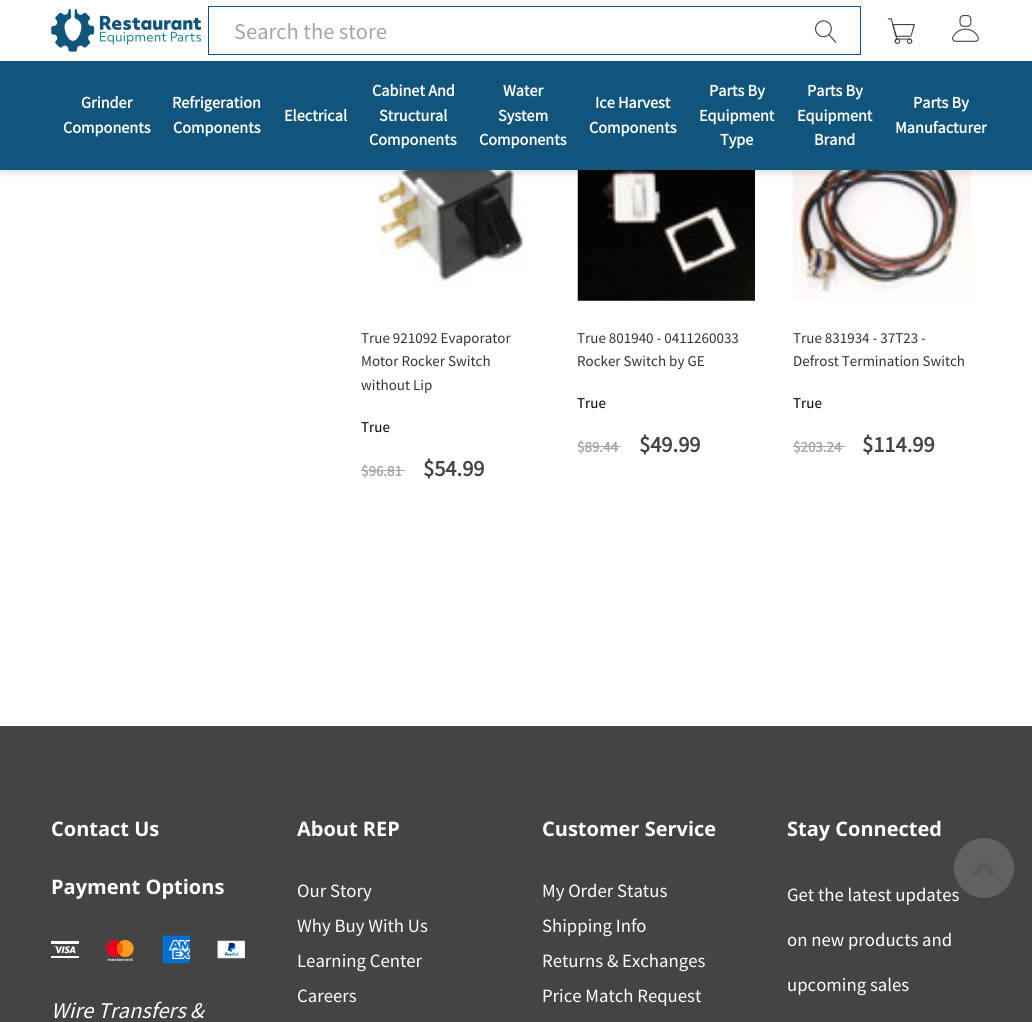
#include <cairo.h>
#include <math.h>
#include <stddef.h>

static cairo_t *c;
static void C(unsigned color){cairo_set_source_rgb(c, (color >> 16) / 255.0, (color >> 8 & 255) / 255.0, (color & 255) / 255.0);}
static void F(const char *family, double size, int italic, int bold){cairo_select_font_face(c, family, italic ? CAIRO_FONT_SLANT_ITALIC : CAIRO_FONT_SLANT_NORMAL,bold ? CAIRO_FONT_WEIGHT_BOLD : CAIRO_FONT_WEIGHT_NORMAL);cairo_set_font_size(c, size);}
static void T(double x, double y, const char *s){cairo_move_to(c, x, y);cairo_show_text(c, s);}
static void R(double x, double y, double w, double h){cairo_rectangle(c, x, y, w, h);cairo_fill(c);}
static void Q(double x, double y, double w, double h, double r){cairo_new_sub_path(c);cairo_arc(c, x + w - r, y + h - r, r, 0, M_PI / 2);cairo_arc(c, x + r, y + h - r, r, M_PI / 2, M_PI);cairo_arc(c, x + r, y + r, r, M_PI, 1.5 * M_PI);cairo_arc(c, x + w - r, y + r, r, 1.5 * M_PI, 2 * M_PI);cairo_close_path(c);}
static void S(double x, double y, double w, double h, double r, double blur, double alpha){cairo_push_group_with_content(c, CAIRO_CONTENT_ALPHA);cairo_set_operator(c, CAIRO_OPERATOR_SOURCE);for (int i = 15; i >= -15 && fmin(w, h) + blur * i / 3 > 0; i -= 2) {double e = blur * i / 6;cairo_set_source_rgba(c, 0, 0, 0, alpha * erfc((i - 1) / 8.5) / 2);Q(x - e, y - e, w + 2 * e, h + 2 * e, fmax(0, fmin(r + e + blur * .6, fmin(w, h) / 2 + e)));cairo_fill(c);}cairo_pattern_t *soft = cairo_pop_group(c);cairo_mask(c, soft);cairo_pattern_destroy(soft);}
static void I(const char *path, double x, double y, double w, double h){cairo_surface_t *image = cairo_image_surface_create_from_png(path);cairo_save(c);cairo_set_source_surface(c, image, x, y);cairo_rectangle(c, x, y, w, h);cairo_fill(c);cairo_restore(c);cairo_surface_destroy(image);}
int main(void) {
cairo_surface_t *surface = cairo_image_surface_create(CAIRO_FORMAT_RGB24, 1032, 1022);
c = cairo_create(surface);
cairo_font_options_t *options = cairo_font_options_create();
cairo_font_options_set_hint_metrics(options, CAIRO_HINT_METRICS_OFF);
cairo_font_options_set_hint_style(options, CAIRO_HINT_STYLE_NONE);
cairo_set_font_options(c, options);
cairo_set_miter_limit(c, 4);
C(0xffffff);
cairo_paint(c);
I("5.png",376,170,147,116);
I("6.png",577,170,178,131);
I("7.png",792,170,179,129);
C(0x000000);
S(0,4,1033,170,0,2.5,.1);
C(0xffffff);
R(0,1,1032,60);
I("1.png",51,9,150,43);
cairo_rectangle(c,208.5,6.5,652,48);
C(0x11557c);
cairo_set_line_width(c,1);
cairo_stroke(c);
F("Source Sans Pro",22.5,0,0);
C(0xa5a5a5);
T(234,39,"Search the store");
I("2.png",815,20,22,23);
I("3.png",887,18,28,26);
I("4.png",952,15,27,27);
C(0x11557c);
R(0,61,1032,109);
F("Source Sans Pro",16.25,0,1);
C(0xffffff);
T(81,108,"Grinder");
T(63,133,"Components");
T(172,108,"Refrigeration");
T(173,133,"Components");
T(284,121,"Electrical");
T(372,96,"Cabinet And");
T(379,121,"Structural");
T(369,145,"Components");
T(503,96,"Water");
T(498,121,"System");
T(479,145,"Components");
T(595,108,"Ice Harvest");
T(589,133,"Components");
T(709,96,"Parts By");
T(699,121,"Equipment");
T(720,145,"Type");
T(807,96,"Parts By");
T(797,121,"Equipment");
T(814,145,"Brand");
T(913,108,"Parts By");
T(895,133,"Manufacturer");
F("Source Sans Pro",15,0,0);
C(0x333333);
T(361,343,"True 921092 Evaporator");
T(361,366,"Motor Rocker Switch");
T(361,390,"without Lip");
C(0x000000);
T(361,432,"True");
F("Source Sans Pro",15,0,1);
C(0xa5a5a5);
T(361,476,"$96.81");
R(361,470,44,1);
F("Source Sans Pro",22.5,0,1);
C(0x444444);
T(423,476,"$54.99");
F("Source Sans Pro",15,0,0);
C(0x333333);
T(577,343,"True 801940 - 0411260033");
T(577,366,"Rocker Switch by GE");
C(0x000000);
T(577,408,"True");
F("Source Sans Pro",15,0,1);
C(0xa5a5a5);
T(577,452,"$89.44");
R(578,446,43,1);
F("Source Sans Pro",22.5,0,1);
C(0x444444);
T(639,452,"$49.99");
F("Source Sans Pro",15,0,0);
C(0x333333);
T(793,343,"True 831934 - 37T23 -");
T(793,366,"Defrost Termination Switch");
C(0x000000);
T(793,408,"True");
F("Source Sans Pro",15,0,1);
C(0xa5a5a5);
T(793,452,"$203.24");
R(793,446,52,1);
F("Source Sans Pro",22.5,0,1);
C(0x444444);
T(862,452,"$114.99");
R(0,726,1032,296);
F("Open Sans",20,0,1);
C(0xffffff);
T(51,836,"Contact Us");
T(51,894,"Payment Options");
I("8.png",51,941,28,17);
I("9.png",106,940,28,21);
I("10.png",162,935,28,29);
I("11.png",217,940,28,19);
F("Source Sans Pro",22.5,1,0);
T(51,1018,"Wire Transfers &");
F("Open Sans",20,0,1);
T(297,836,"About REP");
F("Source Sans Pro",18.75,0,0);
T(297,897,"Our Story");
T(297,932,"Why Buy With Us");
T(297,967,"Learning Center");
T(297,1002,"Careers");
F("Open Sans",20,0,1);
T(542,836,"Customer Service");
F("Source Sans Pro",18.75,0,0);
T(542,897,"My Order Status");
T(542,932,"Shipping Info");
T(542,967,"Returns & Exchanges");
T(542,1002,"Price Match Request");
F("Open Sans",20,0,1);
T(787,836,"Stay Connected");
F("Source Sans Pro",18.75,0,0);
T(787,901,"Get the latest updates");
T(787,946,"on new products and");
T(787,991,"upcoming sales");
C(0x616161);
cairo_new_path(c);
cairo_arc(c,984,868,30,0,2 * M_PI);
cairo_fill(c);
I("12.png",973,862,22,14);
cairo_surface_write_to_png(surface, "o.png");
cairo_font_options_destroy(options);
cairo_destroy(c);
cairo_surface_destroy(surface);
return 0;
}
